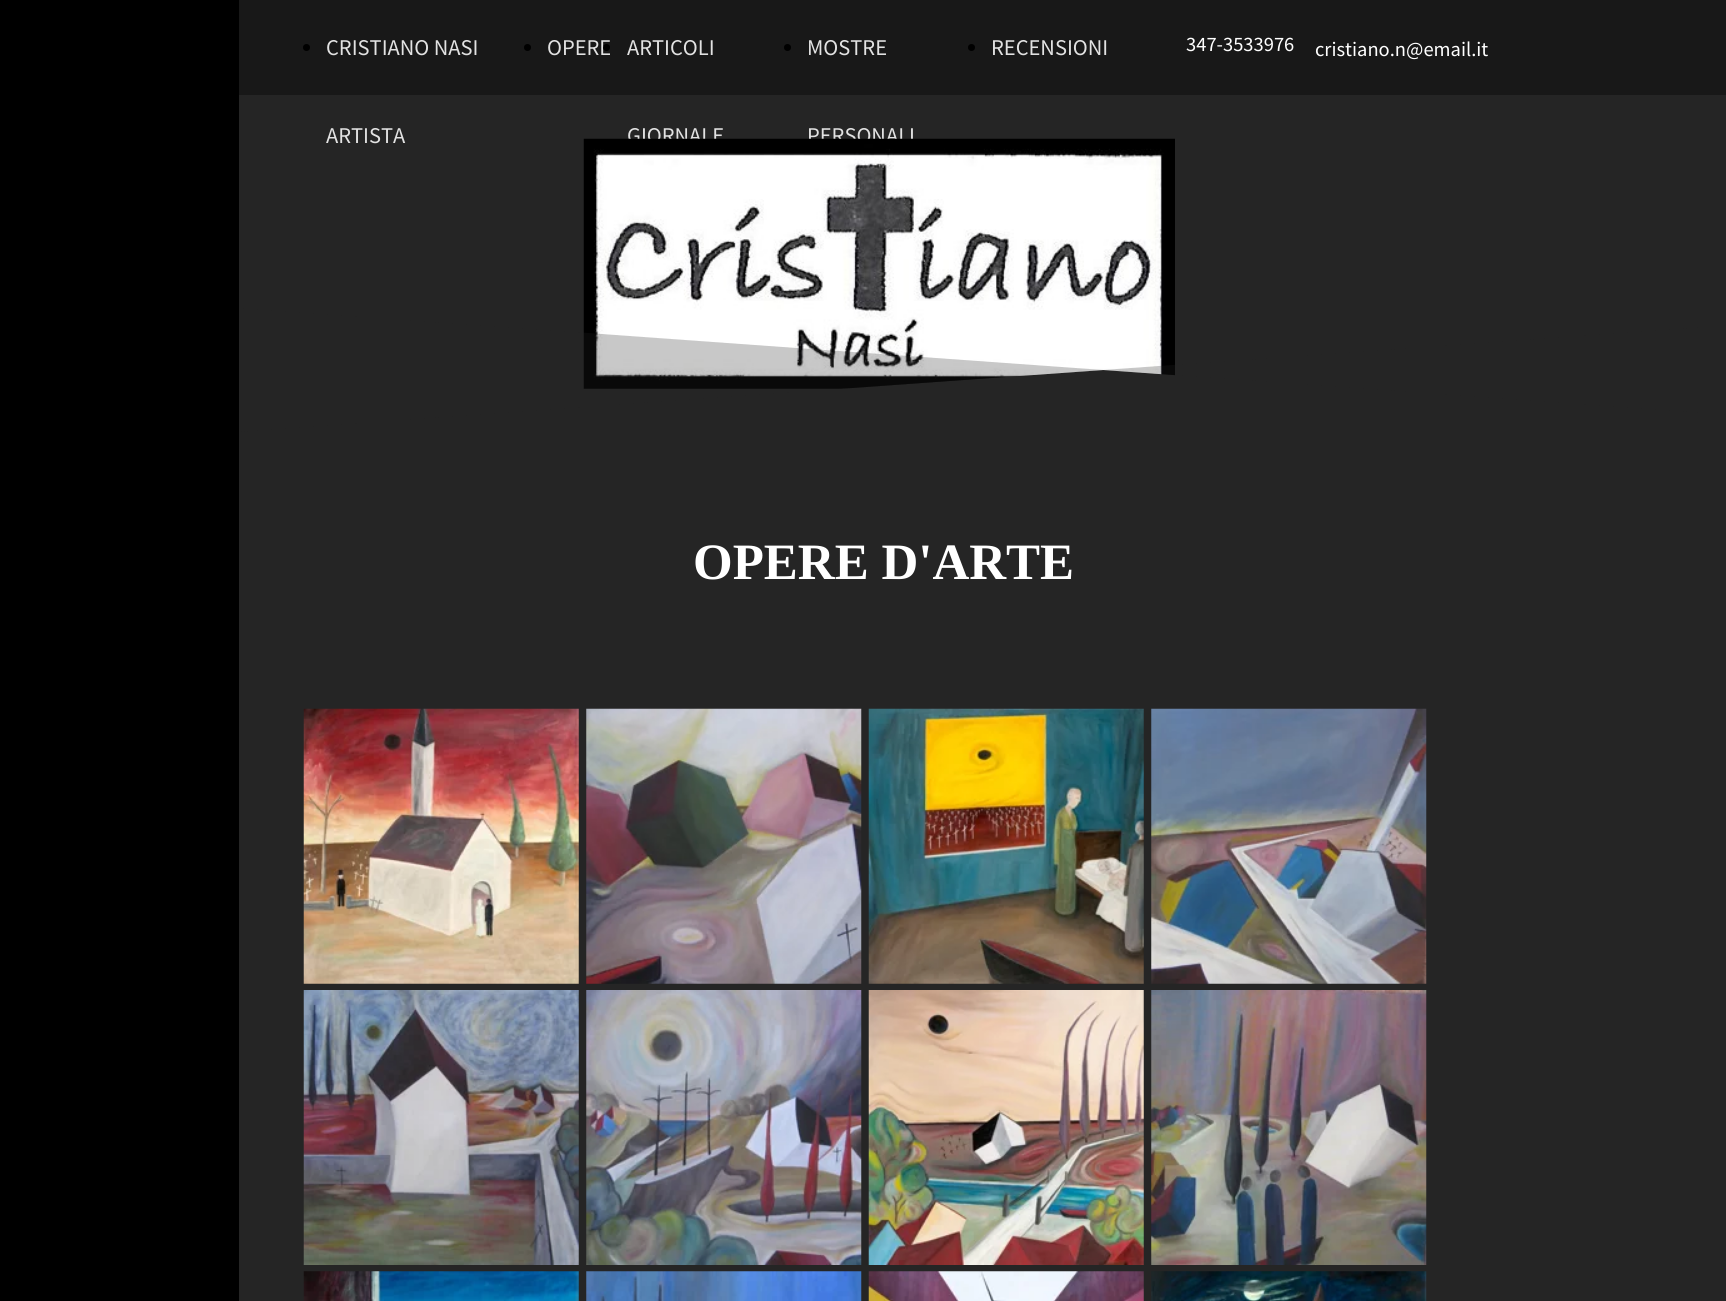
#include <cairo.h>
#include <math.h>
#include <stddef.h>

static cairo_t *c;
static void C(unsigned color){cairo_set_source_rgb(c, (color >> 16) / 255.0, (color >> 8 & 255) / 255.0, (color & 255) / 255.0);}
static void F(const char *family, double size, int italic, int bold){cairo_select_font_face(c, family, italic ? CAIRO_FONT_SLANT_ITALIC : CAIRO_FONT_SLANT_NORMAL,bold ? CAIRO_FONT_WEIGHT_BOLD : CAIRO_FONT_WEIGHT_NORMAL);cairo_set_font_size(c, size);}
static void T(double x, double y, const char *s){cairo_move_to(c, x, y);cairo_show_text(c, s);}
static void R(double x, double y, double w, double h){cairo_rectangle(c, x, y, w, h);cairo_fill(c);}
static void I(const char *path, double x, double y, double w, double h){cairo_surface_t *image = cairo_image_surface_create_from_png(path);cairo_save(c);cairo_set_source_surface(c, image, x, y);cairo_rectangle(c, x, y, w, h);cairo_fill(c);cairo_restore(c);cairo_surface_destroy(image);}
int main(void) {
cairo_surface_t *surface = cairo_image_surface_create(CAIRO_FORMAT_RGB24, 1726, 1301);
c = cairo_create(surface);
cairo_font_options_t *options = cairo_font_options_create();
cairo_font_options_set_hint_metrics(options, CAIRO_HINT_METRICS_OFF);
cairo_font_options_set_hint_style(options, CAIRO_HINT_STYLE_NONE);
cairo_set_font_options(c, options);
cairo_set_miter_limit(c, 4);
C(0x000000);
cairo_paint(c);
C(0x181818);
R(239,0,1487,95);
C(0x000000);
cairo_arc(c,306.5,47.5,3.5,0,2 * M_PI);
cairo_fill(c);
F("Source Sans Pro",22.5,0,0);
C(0xe2e2e2);
T(326,55,"CRISTIANO NASI");
C(0x252525);
R(239,95,1487,1206);
C(0xe2e2e2);
T(326,143,"ARTISTA");
C(0x000000);
cairo_new_path(c);
cairo_arc(c,527.5,47.5,3.5,0,2 * M_PI);
cairo_fill(c);
C(0xe2e2e2);
T(547,55,"OPERE");
C(0x000000);
cairo_new_path(c);
cairo_arc(c,606.5,47.5,3.5,0,2 * M_PI);
cairo_fill(c);
C(0xe2e2e2);
T(627,55,"ARTICOLI");
T(627,143,"GIORNALE");
C(0x000000);
cairo_new_path(c);
cairo_arc(c,787.5,47.5,3.5,0,2 * M_PI);
cairo_fill(c);
C(0xe2e2e2);
T(807,55,"MOSTRE");
T(807,143,"PERSONALI");
C(0x000000);
cairo_new_path(c);
cairo_arc(c,971.5,47.5,3.5,0,2 * M_PI);
cairo_fill(c);
C(0xe2e2e2);
T(991,55,"RECENSIONI");
F("Source Sans Pro",20.5,0,0);
C(0xffffff);
T(1186,51,"347-3533976");
T(1315,56,"cristiano.n@email.it");
I("1.png",583,138,592,251);
C(0x252525);
cairo_new_path(c);
cairo_move_to(c,1103,370);
cairo_line_to(c,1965,432);
cairo_line_to(c,239,432);
cairo_close_path(c);
cairo_fill(c);
cairo_set_source_rgba(c,0.145,0.145,0.145,0.25);
cairo_new_path(c);
cairo_move_to(c,1103,370);
cairo_line_to(c,239,432);
cairo_line_to(c,239,308);
cairo_close_path(c);
cairo_fill(c);
cairo_new_path(c);
cairo_move_to(c,1103,370);
cairo_line_to(c,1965,432);
cairo_line_to(c,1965,308);
cairo_close_path(c);
cairo_fill(c);
F("Liberation Serif",51,0,1);
C(0xffffff);
T(693,579,"OPERE D'ARTE");
I("2.png",303,708,276,276);
I("3.png",586,708,276,276);
I("4.png",868,708,276,276);
I("5.png",1151,708,276,276);
I("6.png",303,990,276,275);
I("7.png",586,990,276,275);
I("8.png",868,990,276,275);
I("9.png",1151,990,276,275);
I("10.png",303,1271,276,30);
I("11.png",586,1271,276,30);
I("12.png",868,1271,276,30);
I("13.png",1151,1271,276,30);
cairo_surface_write_to_png(surface, "o.png");
cairo_font_options_destroy(options);
cairo_destroy(c);
cairo_surface_destroy(surface);
return 0;
}
